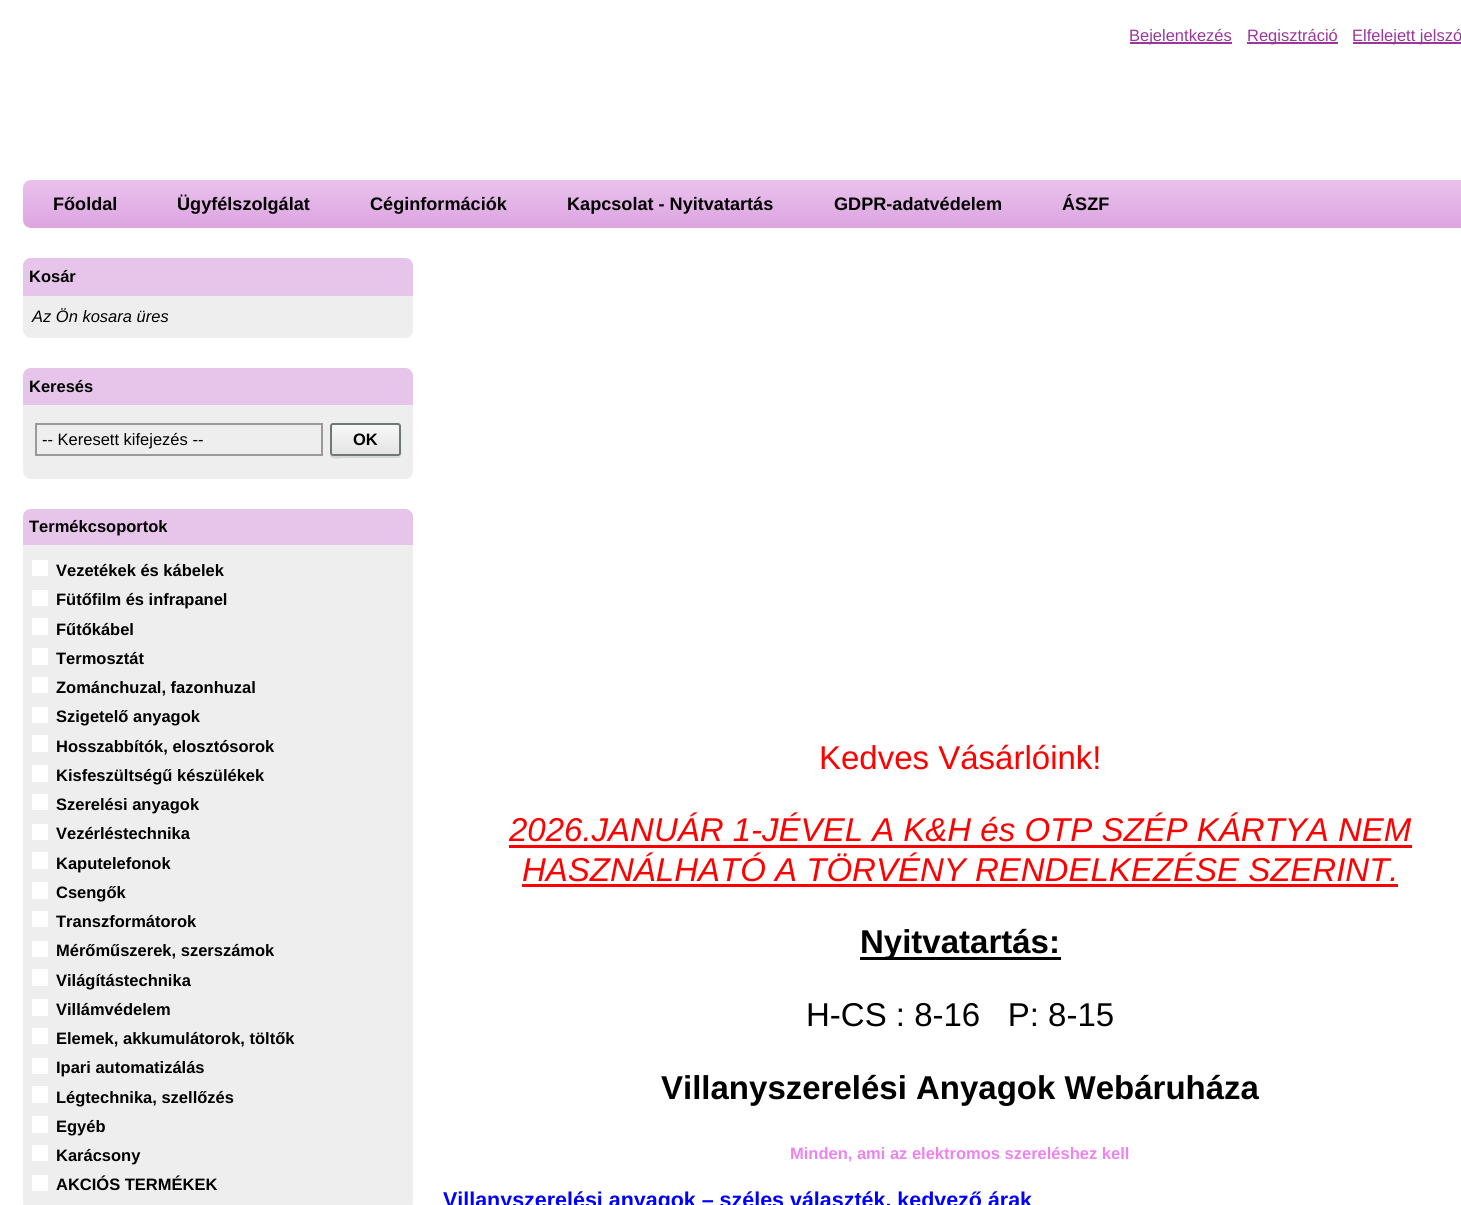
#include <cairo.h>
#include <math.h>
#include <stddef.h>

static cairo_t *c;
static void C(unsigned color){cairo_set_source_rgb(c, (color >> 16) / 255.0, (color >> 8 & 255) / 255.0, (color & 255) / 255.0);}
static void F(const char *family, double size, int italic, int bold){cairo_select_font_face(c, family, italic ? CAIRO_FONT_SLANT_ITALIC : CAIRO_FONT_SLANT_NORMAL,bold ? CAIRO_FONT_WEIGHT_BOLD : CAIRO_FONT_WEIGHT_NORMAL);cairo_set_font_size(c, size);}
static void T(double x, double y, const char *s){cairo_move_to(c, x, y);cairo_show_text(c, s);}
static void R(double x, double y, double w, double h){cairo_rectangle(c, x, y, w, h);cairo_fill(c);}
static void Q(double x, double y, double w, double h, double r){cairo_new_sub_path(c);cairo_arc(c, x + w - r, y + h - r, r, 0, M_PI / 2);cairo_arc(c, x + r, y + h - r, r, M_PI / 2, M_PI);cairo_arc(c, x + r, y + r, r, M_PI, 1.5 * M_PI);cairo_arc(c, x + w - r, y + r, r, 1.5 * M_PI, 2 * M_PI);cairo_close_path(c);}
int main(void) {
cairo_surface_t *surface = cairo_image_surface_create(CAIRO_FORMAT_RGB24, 1461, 1205);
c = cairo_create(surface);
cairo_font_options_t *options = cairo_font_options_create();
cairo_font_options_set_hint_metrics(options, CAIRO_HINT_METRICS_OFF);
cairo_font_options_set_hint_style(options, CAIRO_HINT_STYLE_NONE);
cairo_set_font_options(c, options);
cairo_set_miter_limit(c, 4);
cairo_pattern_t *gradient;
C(0xffffff);
cairo_paint(c);
C(0x9b379b);
R(1130,42,102,2);
F("Liberation Sans",16.5,0,0);
T(1129,41,"Bejelentkezés");
R(1247,42,91,2);
T(1247,41,"Regisztráció");
R(1353,42,108,2);
T(1352,41,"Elfelejett jelszó");
gradient = cairo_pattern_create_linear(23,180,23,228);
cairo_pattern_add_color_stop_rgba(gradient,0,0.914,0.761,0.925,1);
cairo_pattern_add_color_stop_rgba(gradient,1,0.867,0.643,0.882,1);
cairo_set_source(c,gradient);
cairo_pattern_destroy(gradient);
Q(23,180,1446,48,8);
cairo_fill(c);
F("Liberation Sans",18.1,0,1);
C(0x000000);
T(53,210,"Főoldal");
T(177,210,"Ügyfélszolgálat");
T(370,210,"Céginformációk");
T(567,210,"Kapcsolat - Nyitvatartás");
T(834,210,"GDPR-adatvédelem");
T(1062,210,"ÁSZF");
C(0xeeeeee);
Q(23,258,390,80,8);
cairo_fill(c);
C(0xe7c4e9);
cairo_new_path(c);
cairo_move_to(c,31,258);
cairo_line_to(c,405,258);
cairo_curve_to(c,409.5,258,413,261.5,413,266);
cairo_line_to(c,413,296);
cairo_line_to(c,23,296);
cairo_line_to(c,23,266);
cairo_curve_to(c,23,261.5,26.5,258,31,258);
cairo_close_path(c);
cairo_fill(c);
F("Liberation Sans",16.5,0,1);
C(0x000000);
T(29,282,"Kosár");
F("Liberation Sans",16.5,1,0);
T(32,322,"Az Ön kosara üres");
C(0xeeeeee);
Q(23,368,390,111,8);
cairo_fill(c);
C(0xe7c4e9);
cairo_new_path(c);
cairo_move_to(c,31,368);
cairo_line_to(c,405,368);
cairo_curve_to(c,409.5,368,413,371.5,413,376);
cairo_line_to(c,413,405);
cairo_line_to(c,23,405);
cairo_line_to(c,23,376);
cairo_curve_to(c,23,371.5,26.5,368,31,368);
cairo_close_path(c);
cairo_fill(c);
F("Liberation Sans",16.5,0,1);
C(0x000000);
T(29,392,"Keresés");
cairo_rectangle(c,36,424,286,31);
C(0x999999);
cairo_stroke(c);
F("Liberation Sans",16.5,0,0);
C(0x000000);
T(42,445,"-- Keresett kifejezés --");
C(0xd6d6d6);
cairo_new_path(c);
cairo_move_to(c,330,453);
cairo_curve_to(c,330,461,336,458,344,458);
cairo_line_to(c,387,458);
cairo_curve_to(c,405,458,401,459,401,442);
cairo_curve_to(c,401,439,402,429,400,426);
cairo_line_to(c,400,453);
cairo_curve_to(c,400,455,399,456,398,456);
cairo_line_to(c,333,456);
cairo_curve_to(c,331,456,330,455,330,453);
cairo_close_path(c);
cairo_fill(c);
cairo_save(c);
Q(330,423,71,33,3);
cairo_clip(c);
gradient = cairo_pattern_create_linear(365,425,365,455);
cairo_pattern_add_color_stop_rgba(gradient,0,0.973,0.973,0.973,1);
cairo_pattern_add_color_stop_rgba(gradient,1,0.89,0.89,0.89,1);
cairo_set_source(c,gradient);
cairo_pattern_destroy(gradient);
R(330,425,71,30);
cairo_restore(c);
Q(331,424,69,31,2);
C(0x6f7777);
cairo_stroke(c);
F("Liberation Sans",16.5,0,1);
C(0x000000);
T(353,445,"OK");
C(0xeeeeee);
Q(23,509,390,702,8);
cairo_fill(c);
C(0xe7c4e9);
cairo_new_path(c);
cairo_move_to(c,31,509);
cairo_line_to(c,405,509);
cairo_curve_to(c,409.5,509,413,512.5,413,517);
cairo_line_to(c,413,545);
cairo_line_to(c,23,545);
cairo_line_to(c,23,517);
cairo_curve_to(c,23,512.5,26.5,509,31,509);
cairo_close_path(c);
cairo_fill(c);
C(0x000000);
T(29,532,"Termékcsoportok");
C(0xffffff);
R(32,560,16,16);
C(0x000000);
T(56,576,"Vezetékek és kábelek");
C(0xffffff);
R(32,590,16,16);
C(0x000000);
T(56,605,"Fütőfilm és infrapanel");
C(0xffffff);
R(32,618,16,17);
C(0x000000);
T(56,635,"Fűtőkábel");
C(0xffffff);
R(32,648,16,17);
C(0x000000);
T(56,664,"Termosztát");
C(0xffffff);
R(32,677,16,16);
C(0x000000);
T(56,693,"Zománchuzal, fazonhuzal");
C(0xffffff);
R(32,707,16,16);
C(0x000000);
T(56,722,"Szigetelő anyagok");
C(0xffffff);
R(32,735,16,17);
C(0x000000);
T(56,752,"Hosszabbítók, elosztósorok");
C(0xffffff);
R(32,765,16,17);
C(0x000000);
T(56,781,"Kisfeszültségű készülékek");
C(0xffffff);
R(32,794,16,16);
C(0x000000);
T(56,810,"Szerelési anyagok");
C(0xffffff);
R(32,824,16,16);
C(0x000000);
T(56,839,"Vezérléstechnika");
C(0xffffff);
R(32,852,16,17);
C(0x000000);
T(56,869,"Kaputelefonok");
C(0xffffff);
R(32,882,16,17);
C(0x000000);
T(56,898,"Csengők");
C(0xffffff);
R(32,911,16,16);
C(0x000000);
T(56,927,"Transzformátorok");
C(0xffffff);
R(32,941,16,16);
C(0x000000);
T(56,956,"Mérőműszerek, szerszámok");
C(0xffffff);
R(32,969,16,17);
C(0x000000);
T(56,986,"Világítástechnika");
C(0xffffff);
R(32,999,16,17);
C(0x000000);
T(56,1015,"Villámvédelem");
C(0xffffff);
R(32,1028,16,16);
C(0x000000);
T(56,1044,"Elemek, akkumulátorok, töltők");
C(0xffffff);
R(32,1058,16,16);
C(0x000000);
T(56,1073,"Ipari automatizálás");
C(0xffffff);
R(32,1086,16,17);
C(0x000000);
T(56,1103,"Légtechnika, szellőzés");
C(0xffffff);
R(32,1116,16,17);
C(0x000000);
T(56,1132,"Egyéb");
C(0xffffff);
R(32,1145,16,16);
C(0x000000);
T(56,1161,"Karácsony");
C(0xffffff);
R(32,1175,16,16);
C(0x000000);
T(56,1190,"AKCIÓS TERMÉKEK");
F("Liberation Sans",33,0,0);
C(0xff0000);
T(819,769,"Kedves Vásárlóink!");
F("Liberation Sans",33,1,0);
T(509,841,"2026.JANUÁR 1-JÉVEL A K&H és OTP SZÉP KÁRTYA NEM");
R(509,845,903,3);
T(522,881,"HASZNÁLHATÓ A TÖRVÉNY RENDELKEZÉSE SZERINT.");
R(522,884,876,3);
C(0x000000);
R(860,957,201,3);
F("Liberation Sans",33,0,1);
T(860,953,"Nyitvatartás:");
F("Liberation Sans",33,0,0);
T(806,1026,"H-CS : 8-16   P: 8-15");
F("Liberation Sans",33,0,1);
T(661,1099,"Villanyszerelési Anyagok Webáruháza");
F("Liberation Sans",16.5,0,1);
C(0xee82ee);
T(790,1159,"Minden, ami az elektromos szereléshez kell");
F("Liberation Sans",21.45,0,1);
C(0x0000ff);
T(443,1207,"Villanyszerelési anyagok – széles választék, kedvező árak");
cairo_surface_write_to_png(surface, "o.png");
cairo_font_options_destroy(options);
cairo_destroy(c);
cairo_surface_destroy(surface);
return 0;
}
